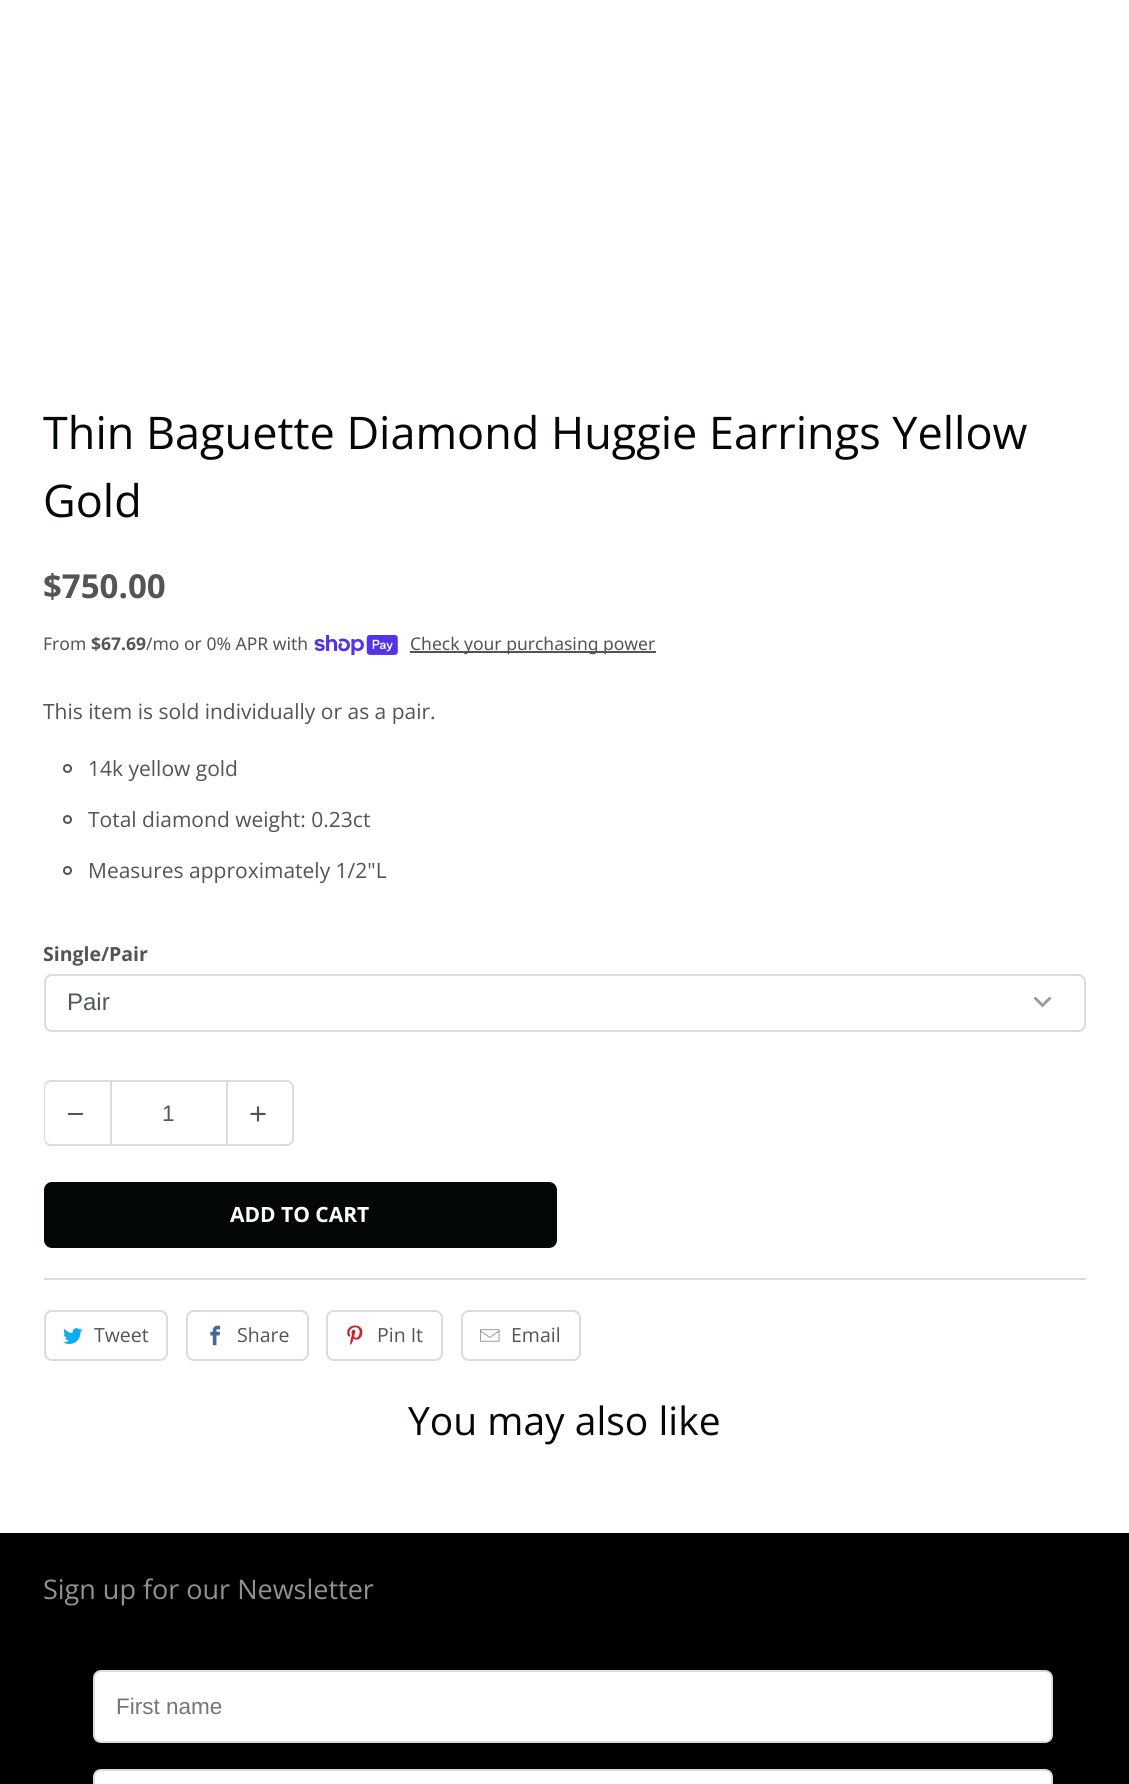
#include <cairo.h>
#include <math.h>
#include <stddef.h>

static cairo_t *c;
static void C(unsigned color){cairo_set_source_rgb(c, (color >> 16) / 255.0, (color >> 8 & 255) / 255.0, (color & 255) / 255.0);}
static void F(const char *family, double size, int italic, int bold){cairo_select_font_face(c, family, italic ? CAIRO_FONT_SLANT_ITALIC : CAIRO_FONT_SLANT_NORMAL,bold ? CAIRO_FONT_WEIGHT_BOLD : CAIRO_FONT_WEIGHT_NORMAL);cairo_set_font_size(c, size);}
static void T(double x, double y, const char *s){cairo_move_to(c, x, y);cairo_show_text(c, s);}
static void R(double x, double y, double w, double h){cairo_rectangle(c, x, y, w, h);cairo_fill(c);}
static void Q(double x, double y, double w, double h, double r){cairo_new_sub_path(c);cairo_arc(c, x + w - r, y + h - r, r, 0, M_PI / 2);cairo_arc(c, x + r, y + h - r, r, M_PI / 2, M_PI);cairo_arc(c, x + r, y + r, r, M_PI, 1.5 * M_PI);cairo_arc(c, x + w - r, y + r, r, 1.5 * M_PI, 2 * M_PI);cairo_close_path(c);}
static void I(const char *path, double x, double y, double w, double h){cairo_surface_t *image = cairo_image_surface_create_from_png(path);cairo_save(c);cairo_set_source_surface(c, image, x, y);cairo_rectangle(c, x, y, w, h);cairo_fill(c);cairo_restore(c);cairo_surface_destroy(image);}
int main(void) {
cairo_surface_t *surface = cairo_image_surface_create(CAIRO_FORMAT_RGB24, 1129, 1784);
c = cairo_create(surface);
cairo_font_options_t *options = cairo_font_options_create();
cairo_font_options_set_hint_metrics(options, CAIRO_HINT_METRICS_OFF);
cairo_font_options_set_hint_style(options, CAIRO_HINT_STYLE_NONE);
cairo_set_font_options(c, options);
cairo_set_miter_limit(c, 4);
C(0xffffff);
cairo_paint(c);
F("Open Sans",45,0,0);
C(0x040707);
T(43,449,"Thin Baguette Diamond Huggie Earrings Yellow");
T(43,517,"Gold");
F("Open Sans",33,0,1);
C(0x545454);
T(43,598,"$750.00");
F("Noto Sans",17.5,0,0);
T(43,650,"From");
F("Noto Sans",17.5,0,1);
T(91,650,"$67.69");
F("Noto Sans",17.5,0,0);
T(146,650,"/mo or 0% APR with");
I("1.png",314,635,84,21);
R(410,651,246,2);
T(410,650,"Check your purchasing power");
F("Open Sans",21,0,0);
T(43,719,"This item is sold individually or as a pair.");
cairo_new_path(c);
cairo_arc(c,67.5,768.5,3.5,0,2 * M_PI);
cairo_stroke(c);
T(88,776,"14k yellow gold");
cairo_new_path(c);
cairo_arc(c,67.5,819.5,3.5,0,2 * M_PI);
cairo_stroke(c);
T(88,827,"Total diamond weight: 0.23ct");
cairo_new_path(c);
cairo_arc(c,67.5,870.5,3.5,0,2 * M_PI);
cairo_stroke(c);
T(88,878,"Measures approximately 1/2\"L");
F("Open Sans",19.5,0,1);
T(43,961,"Single/Pair");
C(0x959ba2);
cairo_new_path(c);
cairo_move_to(c,1049.5,996.5);
cairo_line_to(c,1042.5,1003.5);
cairo_line_to(c,1035.5,996.5);
cairo_line_to(c,1033.5,998.5);
cairo_line_to(c,1042.5,1007.5);
cairo_line_to(c,1051.5,998.5);
cairo_close_path(c);
cairo_fill(c);
Q(45,975,1040,56,7);
C(0xdbdbdb);
cairo_stroke(c);
F("Liberation Sans",24,0,0);
C(0x51595d);
T(67,1010,"Pair");
C(0xdbdbdb);
cairo_set_fill_rule(c,CAIRO_FILL_RULE_EVEN_ODD);
cairo_new_path(c);
cairo_move_to(c,51,1080);
cairo_line_to(c,110,1080);
cairo_line_to(c,110,1146);
cairo_line_to(c,51,1146);
cairo_curve_to(c,47,1146,44,1143,44,1138);
cairo_line_to(c,44,1088);
cairo_curve_to(c,44,1083,47,1080,51,1080);
cairo_close_path(c);
cairo_move_to(c,51,1082);
cairo_line_to(c,110,1082);
cairo_line_to(c,110,1144);
cairo_line_to(c,51,1144);
cairo_curve_to(c,48,1144,45,1142,45,1138);
cairo_line_to(c,45,1088);
cairo_curve_to(c,45,1084,48,1082,51,1082);
cairo_close_path(c);
cairo_fill(c);
C(0x545454);
R(68,1113,15,2);
cairo_rectangle(c,111,1081,116,64);
C(0xdbdbdb);
cairo_stroke(c);
F("Liberation Sans",22.5,0,0);
C(0x51595d);
T(162,1121,"1");
C(0xdbdbdb);
cairo_new_path(c);
cairo_move_to(c,228,1080);
cairo_line_to(c,286,1080);
cairo_curve_to(c,291,1080,294,1083,294,1088);
cairo_line_to(c,294,1138);
cairo_curve_to(c,294,1143,291,1146,286,1146);
cairo_line_to(c,228,1146);
cairo_close_path(c);
cairo_move_to(c,228,1082);
cairo_line_to(c,286,1082);
cairo_curve_to(c,290,1082,292,1084,292,1088);
cairo_line_to(c,292,1138);
cairo_curve_to(c,292,1142,290,1144,286,1144);
cairo_line_to(c,228,1144);
cairo_close_path(c);
cairo_fill(c);
I("2.png",250,1106,16,16);
C(0x040707);
Q(44,1182,513,66,8);
cairo_fill(c);
F("Open Sans",21,0,1);
C(0xffffff);
T(230,1222,"ADD TO CART");
C(0xdbdbdb);
R(44,1278,1042,2);
Q(45,1311,122,49,7);
cairo_stroke(c);
I("3.png",63,1328,20,16);
F("Open Sans",19.5,0,0);
C(0x545454);
T(94,1342,"Tweet");
Q(187,1311,121,49,7);
C(0xdbdbdb);
cairo_stroke(c);
I("4.png",210,1325,11,21);
C(0x545454);
T(237,1342,"Share");
Q(327,1311,115,49,7);
C(0xdbdbdb);
cairo_stroke(c);
I("5.png",347,1325,16,20);
C(0x545454);
T(377,1342,"Pin It");
Q(462,1311,118,49,7);
C(0xdbdbdb);
cairo_stroke(c);
I("6.png",480,1329,20,13);
C(0x545454);
T(511,1342,"Email");
F("Open Sans",39,0,0);
C(0x040707);
T(408,1435,"You may also like");
C(0x000000);
R(0,1533,1129,251);
F("Open Sans",27,0,0);
C(0x929191);
T(43,1599,"Sign up for our Newsletter");
C(0xffffff);
Q(94,1671,958,71,7);
cairo_fill_preserve(c);
C(0xdbdbdb);
cairo_stroke(c);
F("Liberation Sans",22.5,0,0);
C(0x757575);
T(116,1714,"First name");
C(0xffffff);
Q(94,1770,958,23,7);
cairo_fill_preserve(c);
C(0xdbdbdb);
cairo_stroke(c);
cairo_surface_write_to_png(surface, "o.png");
cairo_font_options_destroy(options);
cairo_destroy(c);
cairo_surface_destroy(surface);
return 0;
}
